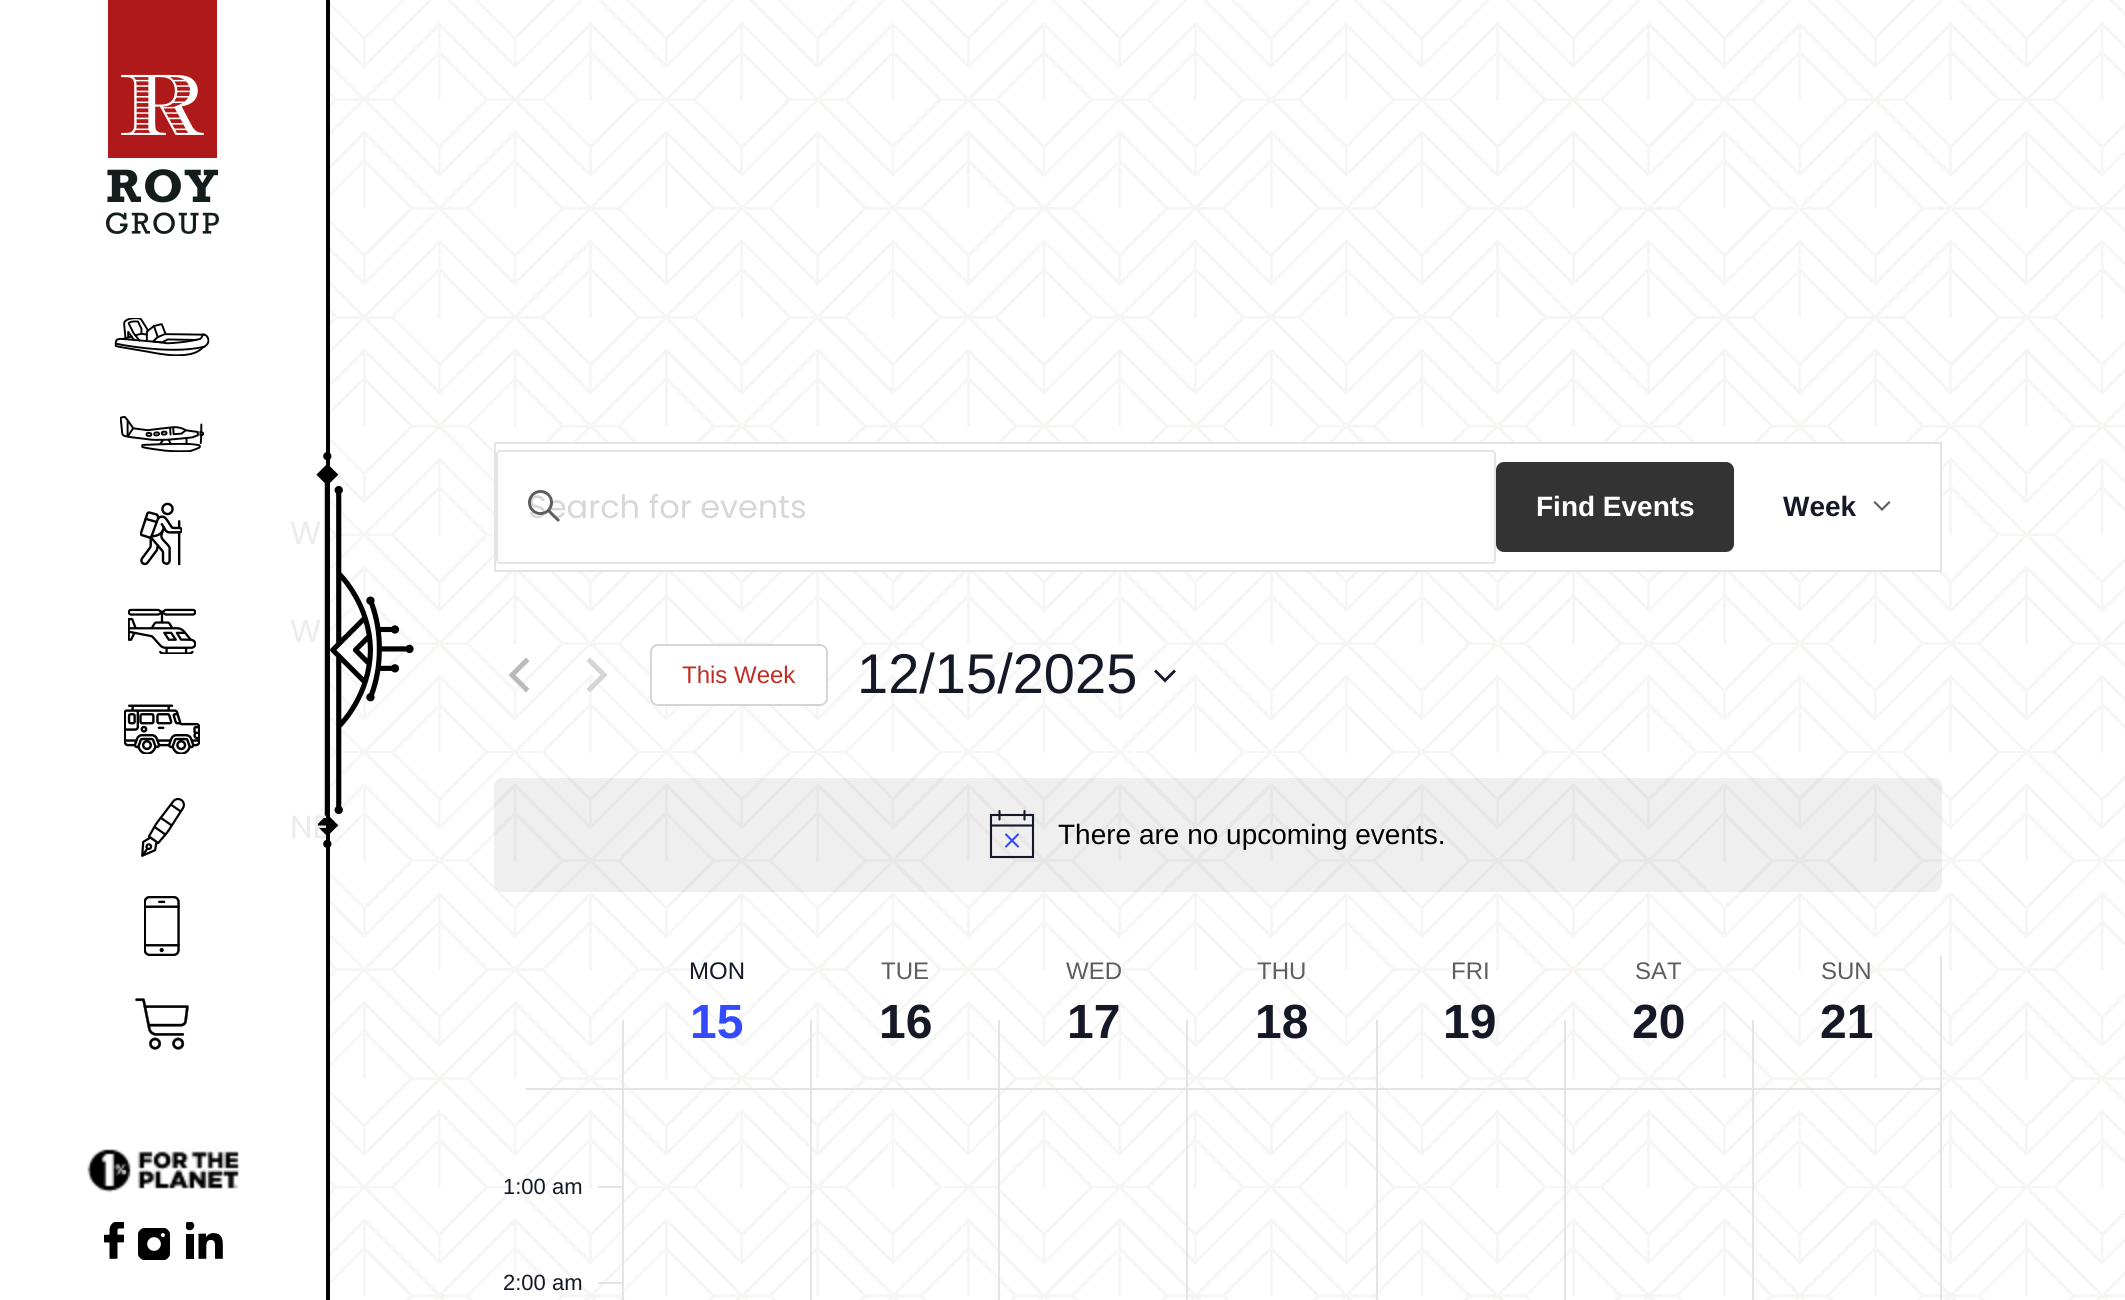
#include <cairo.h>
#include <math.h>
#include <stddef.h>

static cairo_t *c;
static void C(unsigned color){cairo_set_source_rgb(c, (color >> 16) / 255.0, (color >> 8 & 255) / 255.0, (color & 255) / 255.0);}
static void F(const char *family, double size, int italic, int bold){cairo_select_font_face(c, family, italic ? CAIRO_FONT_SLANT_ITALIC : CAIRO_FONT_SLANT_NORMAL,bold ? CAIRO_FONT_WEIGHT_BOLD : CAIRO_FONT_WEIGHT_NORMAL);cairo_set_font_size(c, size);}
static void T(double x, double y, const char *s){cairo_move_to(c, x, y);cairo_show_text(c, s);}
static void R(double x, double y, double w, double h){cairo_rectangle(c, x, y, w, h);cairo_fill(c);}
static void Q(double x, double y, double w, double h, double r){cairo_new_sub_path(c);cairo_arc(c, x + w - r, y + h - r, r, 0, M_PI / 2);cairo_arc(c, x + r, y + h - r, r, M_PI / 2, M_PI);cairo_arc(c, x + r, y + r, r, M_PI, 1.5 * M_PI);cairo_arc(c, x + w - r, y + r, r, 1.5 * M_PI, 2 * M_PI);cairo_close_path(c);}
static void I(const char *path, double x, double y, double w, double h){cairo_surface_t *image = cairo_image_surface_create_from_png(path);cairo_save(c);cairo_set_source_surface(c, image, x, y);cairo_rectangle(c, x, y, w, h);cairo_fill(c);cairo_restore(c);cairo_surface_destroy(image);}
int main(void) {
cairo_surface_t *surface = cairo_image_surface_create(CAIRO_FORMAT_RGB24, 2125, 1300);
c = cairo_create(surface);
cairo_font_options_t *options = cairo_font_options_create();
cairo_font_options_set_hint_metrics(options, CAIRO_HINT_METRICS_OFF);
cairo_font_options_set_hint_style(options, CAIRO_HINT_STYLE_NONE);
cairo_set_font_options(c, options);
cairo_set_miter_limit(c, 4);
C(0xffffff);
cairo_paint(c);
I("1.png",330,0,1795,1300);
C(0x000000);
R(326,0,4,1300);
I("2.png",106,0,113,234);
I("3.png",114,318,96,38);
I("4.png",120,416,84,36);
I("5.png",140,502,42,64);
I("11.png",316,452,98,396);
F("Poppins",32,0,0);
C(0xececec);
T(290,544,"W");
I("6.png",128,608,68,46);
T(290,642,"W");
I("7.png",124,704,76,50);
I("8.png",141,797,44,60);
cairo_save(c);
cairo_rectangle(c,0,312,326,738);
cairo_clip(c);
T(290,838,"NE");
cairo_restore(c);
I("9.png",144,896,36,60);
I("10.png",135,998,54,52);
I("12.png",87,1149,153,44);
I("13.png",104,1222,20,37);
I("14.png",138,1228,32,32);
I("15.png",186,1222,37,37);
C(0xffffff);
cairo_rectangle(c,495,443,1446,128);
cairo_fill_preserve(c);
C(0xe4e4e4);
cairo_stroke(c);
Q(497,451,998,112,3);
cairo_stroke(c);
C(0xd7d7d7);
T(528,518,"Search for events");
I("16.png",528,490,32,32);
C(0x333333);
Q(1496,462,238,90,8);
cairo_fill(c);
F("Liberation Sans",28,0,1);
C(0xffffff);
T(1536,516,"Find Events");
C(0x141827);
T(1783,516,"Week");
C(0x5d5d5d);
cairo_set_fill_rule(c,CAIRO_FILL_RULE_EVEN_ODD);
cairo_new_path(c);
cairo_move_to(c,1875,501);
cairo_line_to(c,1882,508);
cairo_line_to(c,1889,501);
cairo_line_to(c,1890.5,502.5);
cairo_line_to(c,1882,511);
cairo_line_to(c,1873.5,502.5);
cairo_close_path(c);
cairo_fill(c);
C(0xbababa);
cairo_set_fill_rule(c,CAIRO_FILL_RULE_WINDING);
cairo_new_path(c);
cairo_move_to(c,529.5,689);
cairo_line_to(c,526,692.5);
cairo_line_to(c,508.5,675);
cairo_line_to(c,526,657.5);
cairo_line_to(c,529.5,661);
cairo_line_to(c,515.5,675);
cairo_close_path(c);
cairo_fill(c);
C(0xd5d5d5);
cairo_new_path(c);
cairo_move_to(c,586.5,661);
cairo_line_to(c,590,657.5);
cairo_line_to(c,607.5,675);
cairo_line_to(c,590,692.5);
cairo_line_to(c,586.5,689);
cairo_line_to(c,600.5,675);
cairo_close_path(c);
cairo_fill(c);
C(0xffffff);
Q(651,645,176,60,7);
cairo_fill_preserve(c);
C(0xd5d5d5);
cairo_stroke(c);
F("Liberation Sans",24,0,0);
C(0xbf2e24);
T(682,683,"This Week");
F("Liberation Sans",56,0,0);
C(0x141827);
T(857,693,"12/15/2025");
cairo_set_fill_rule(c,CAIRO_FILL_RULE_EVEN_ODD);
cairo_new_path(c);
cairo_move_to(c,1156,669.5);
cairo_line_to(c,1165,678.5);
cairo_line_to(c,1174,669.5);
cairo_line_to(c,1176,671.5);
cairo_line_to(c,1165,682.5);
cairo_line_to(c,1154,671.5);
cairo_close_path(c);
cairo_fill(c);
cairo_set_source_rgba(c,0.078,0.094,0.153,0.07);
Q(494,778,1448,114,8);
cairo_fill(c);
cairo_new_path(c);
cairo_move_to(c,991,815);
cairo_line_to(c,1033,815);
cairo_line_to(c,1033,857);
cairo_line_to(c,991,857);
cairo_close_path(c);
C(0x141827);
cairo_set_line_width(c,2.1);
cairo_stroke(c);
cairo_new_path(c);
cairo_move_to(c,1006,834.5);
cairo_line_to(c,1018,846.5);
cairo_move_to(c,1018,834.5);
cairo_line_to(c,1006,846.5);
C(0x334aff);
cairo_set_line_cap(c,CAIRO_LINE_CAP_ROUND);
cairo_stroke(c);
cairo_new_path(c);
cairo_move_to(c,999.5,811);
cairo_line_to(c,999.5,819.5);
cairo_move_to(c,1024.5,811);
cairo_line_to(c,1024.5,819.5);
C(0x141827);
cairo_stroke(c);
cairo_new_path(c);
cairo_move_to(c,991,825.5);
cairo_line_to(c,1033,825.5);
cairo_set_line_cap(c,CAIRO_LINE_CAP_SQUARE);
cairo_stroke(c);
F("Liberation Sans",28,0,0);
C(0x000000);
T(1058,844,"There are no upcoming events.");
C(0xe4e4e4);
R(1940,956,2,344);
R(526,1088,1414,2);
R(622,1020,2,280);
F("Liberation Sans",24,0,0);
C(0x141827);
T(689,979,"MON");
F("Liberation Sans",48,0,1);
C(0x334aff);
T(690,1038,"15");
C(0xe4e4e4);
R(810,1020,2,280);
F("Liberation Sans",24,0,0);
C(0x5d5d5d);
T(881,979,"TUE");
F("Liberation Sans",48,0,1);
C(0x141827);
T(879,1038,"16");
C(0xe4e4e4);
R(998,1020,2,280);
F("Liberation Sans",24,0,0);
C(0x5d5d5d);
T(1066,979,"WED");
F("Liberation Sans",48,0,1);
C(0x141827);
T(1067,1038,"17");
C(0xe4e4e4);
R(1186,1020,2,280);
F("Liberation Sans",24,0,0);
C(0x5d5d5d);
T(1257,979,"THU");
F("Liberation Sans",48,0,1);
C(0x141827);
T(1255,1038,"18");
C(0xe4e4e4);
R(1376,1020,2,280);
F("Liberation Sans",24,0,0);
C(0x5d5d5d);
T(1451,979,"FRI");
F("Liberation Sans",48,0,1);
C(0x141827);
T(1443,1038,"19");
C(0xe4e4e4);
R(1564,1020,2,280);
F("Liberation Sans",24,0,0);
C(0x5d5d5d);
T(1635,979,"SAT");
F("Liberation Sans",48,0,1);
C(0x141827);
T(1632,1038,"20");
C(0xe4e4e4);
R(1752,1020,2,280);
F("Liberation Sans",24,0,0);
C(0x5d5d5d);
T(1821,979,"SUN");
F("Liberation Sans",48,0,1);
C(0x141827);
T(1820,1038,"21");
F("Liberation Sans",22,0,0);
T(503,1194,"1:00 am");
C(0xe4e4e4);
R(598,1186,24,2);
C(0x141827);
T(503,1290,"2:00 am");
C(0xe4e4e4);
R(598,1282,24,2);
cairo_surface_write_to_png(surface, "o.png");
cairo_font_options_destroy(options);
cairo_destroy(c);
cairo_surface_destroy(surface);
return 0;
}
